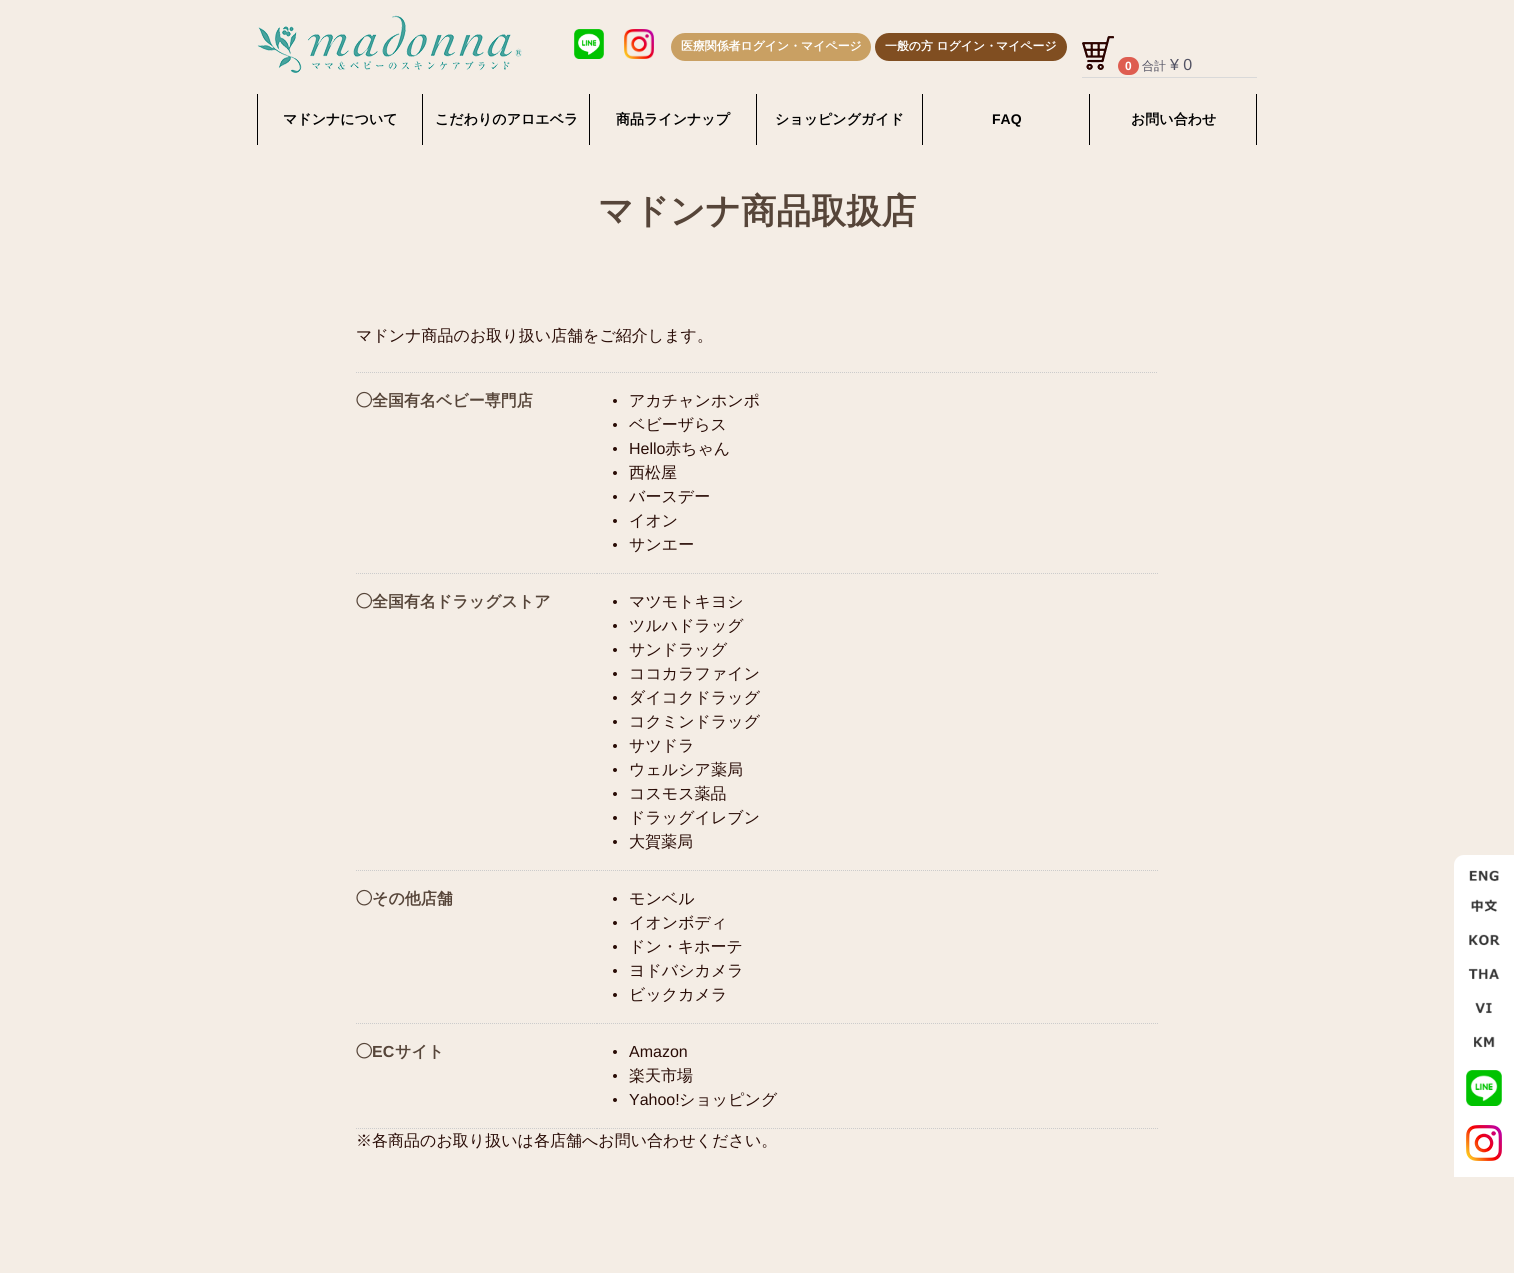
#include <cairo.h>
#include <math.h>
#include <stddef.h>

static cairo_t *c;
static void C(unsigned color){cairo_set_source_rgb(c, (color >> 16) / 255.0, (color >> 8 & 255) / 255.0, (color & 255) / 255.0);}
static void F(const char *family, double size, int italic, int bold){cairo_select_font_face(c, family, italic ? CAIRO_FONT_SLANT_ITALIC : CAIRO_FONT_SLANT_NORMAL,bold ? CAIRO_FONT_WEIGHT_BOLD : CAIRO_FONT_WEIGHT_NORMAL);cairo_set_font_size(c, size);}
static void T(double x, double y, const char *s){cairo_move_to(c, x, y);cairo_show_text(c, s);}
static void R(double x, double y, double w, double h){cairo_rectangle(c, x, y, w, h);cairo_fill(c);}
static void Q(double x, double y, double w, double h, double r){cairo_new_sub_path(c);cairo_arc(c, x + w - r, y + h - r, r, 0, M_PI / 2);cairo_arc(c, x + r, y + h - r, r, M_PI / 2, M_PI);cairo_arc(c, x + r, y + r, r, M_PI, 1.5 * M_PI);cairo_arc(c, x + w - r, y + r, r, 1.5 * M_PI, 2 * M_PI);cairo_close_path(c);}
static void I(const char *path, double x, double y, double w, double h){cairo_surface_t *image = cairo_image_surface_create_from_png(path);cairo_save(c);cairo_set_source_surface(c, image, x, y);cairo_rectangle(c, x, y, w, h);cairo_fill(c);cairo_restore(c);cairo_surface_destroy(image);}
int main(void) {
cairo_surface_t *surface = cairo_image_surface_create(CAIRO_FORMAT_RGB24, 1514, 1273);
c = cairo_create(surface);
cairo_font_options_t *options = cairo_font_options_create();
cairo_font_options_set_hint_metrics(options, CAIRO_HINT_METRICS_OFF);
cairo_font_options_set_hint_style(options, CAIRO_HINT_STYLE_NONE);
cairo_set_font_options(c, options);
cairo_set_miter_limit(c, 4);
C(0xf4ede5);
cairo_paint(c);
I("1.png",257,15,265,58);
I("2.png",574,29,30,30);
I("3.png",624,29,30,30);
C(0xc9a063);
Q(671,33,200,28,14);
cairo_fill(c);
F("WenQuanYi Zen Hei",11.9,0,1);
C(0xffffff);
T(681,50,"医療関係者ログイン・マイページ");
C(0x804e21);
Q(875,33,192,28,14);
cairo_fill(c);
C(0xffffff);
T(885,50,"一般の方 ログイン・");
T(996,50,"マイページ");
C(0xd9d9d9);
R(1082,77,175,1);
I("4.png",1082,36,32,34);
C(0xde5d50);
Q(1118,57,21,18,9);
cairo_fill(c);
F("Liberation Sans",12,0,1);
C(0xffffff);
T(1125,70,"0");
F("WenQuanYi Zen Hei Medium",12,0,0);
C(0x525263);
T(1142,70,"合計");
F("Liberation Sans",16,0,0);
T(1170,70,"¥ 0");
C(0x000000);
R(422,94,1,51);
R(257,94,1,51);
F("WenQuanYi Zen Hei",14,0,1);
T(283,124,"マドンナについて");
R(589,94,1,51);
T(435,124,"こだわりのアロエベラ");
R(756,94,1,51);
T(616,124,"商品ラインナップ");
R(922,94,1,51);
T(775,124,"ショッピングガイド");
R(1089,94,1,51);
F("Liberation Sans",14,0,1);
T(992,124,"FAQ");
R(1256,94,1,51);
F("WenQuanYi Zen Hei",14,0,1);
T(1131,124,"お問い合わせ");
F("WenQuanYi Zen Hei",35,0,1);
C(0x564539);
T(598,223,"マドンナ商品取扱店");
F("WenQuanYi Zen Hei Medium",16,0,0);
C(0x290c06);
T(356,341,"マドンナ商品のお取り扱い店舗をご紹介します。");
cairo_new_path(c);
cairo_move_to(c,356,372.5);
cairo_line_to(c,1158,372.5);
C(0xcccccc);
cairo_set_line_width(c,1);
cairo_set_dash(c,(double[]){1,1},2,0);
cairo_stroke(c);
cairo_new_path(c);
cairo_move_to(c,356,573.5);
cairo_line_to(c,597,573.5);
cairo_stroke(c);
F("IPAPGothic",16,0,1);
C(0x564539);
T(356,406,"◯");
F("WenQuanYi Zen Hei",16,0,1);
T(372,406,"全国有名ベビー専門店");
cairo_new_path(c);
cairo_move_to(c,597,573.5);
cairo_line_to(c,1158,573.5);
C(0xcccccc);
cairo_stroke(c);
C(0x290c06);
cairo_arc(c,615,401,2,0,2 * M_PI);
cairo_fill(c);
F("WenQuanYi Zen Hei Medium",16,0,0);
T(629,406,"アカチャンホンポ");
cairo_new_path(c);
cairo_arc(c,615,425,2,0,2 * M_PI);
cairo_fill(c);
T(629,430,"ベビーザらス");
cairo_new_path(c);
cairo_arc(c,615,449,2,0,2 * M_PI);
cairo_fill(c);
F("Liberation Sans",16,0,0);
T(629,454,"Hello");
F("WenQuanYi Zen Hei Medium",16,0,0);
T(665,454,"赤ちゃん");
cairo_new_path(c);
cairo_arc(c,615,473,2,0,2 * M_PI);
cairo_fill(c);
T(629,478,"西松屋");
cairo_new_path(c);
cairo_arc(c,615,497,2,0,2 * M_PI);
cairo_fill(c);
T(629,502,"バースデー");
cairo_new_path(c);
cairo_arc(c,615,521,2,0,2 * M_PI);
cairo_fill(c);
T(629,526,"イオン");
cairo_new_path(c);
cairo_arc(c,615,545,2,0,2 * M_PI);
cairo_fill(c);
T(629,550,"サンエー");
cairo_new_path(c);
cairo_move_to(c,356,870.5);
cairo_line_to(c,597,870.5);
C(0xcccccc);
cairo_stroke(c);
F("IPAPGothic",16,0,1);
C(0x564539);
T(356,607,"◯");
F("WenQuanYi Zen Hei",16,0,1);
T(372,607,"全国有名ドラッグストア");
cairo_new_path(c);
cairo_move_to(c,597,870.5);
cairo_line_to(c,1158,870.5);
C(0xcccccc);
cairo_stroke(c);
C(0x290c06);
cairo_arc(c,615,602,2,0,2 * M_PI);
cairo_fill(c);
F("WenQuanYi Zen Hei Medium",16,0,0);
T(629,607,"マツモトキヨシ");
cairo_new_path(c);
cairo_arc(c,615,626,2,0,2 * M_PI);
cairo_fill(c);
T(629,631,"ツルハドラッグ");
cairo_new_path(c);
cairo_arc(c,615,650,2,0,2 * M_PI);
cairo_fill(c);
T(629,655,"サンドラッグ");
cairo_new_path(c);
cairo_arc(c,615,674,2,0,2 * M_PI);
cairo_fill(c);
T(629,679,"ココカラファイン");
cairo_new_path(c);
cairo_arc(c,615,698,2,0,2 * M_PI);
cairo_fill(c);
T(629,703,"ダイコクドラッグ");
cairo_new_path(c);
cairo_arc(c,615,722,2,0,2 * M_PI);
cairo_fill(c);
T(629,727,"コクミンドラッグ");
cairo_new_path(c);
cairo_arc(c,615,746,2,0,2 * M_PI);
cairo_fill(c);
T(629,751,"サツドラ");
cairo_new_path(c);
cairo_arc(c,615,770,2,0,2 * M_PI);
cairo_fill(c);
T(629,775,"ウェルシア薬局");
cairo_new_path(c);
cairo_arc(c,615,794,2,0,2 * M_PI);
cairo_fill(c);
T(629,799,"コスモス薬品");
cairo_new_path(c);
cairo_arc(c,615,818,2,0,2 * M_PI);
cairo_fill(c);
T(629,823,"ドラッグイレブン");
cairo_new_path(c);
cairo_arc(c,615,842,2,0,2 * M_PI);
cairo_fill(c);
T(629,847,"大賀薬局");
cairo_new_path(c);
cairo_move_to(c,356,1023.5);
cairo_line_to(c,597,1023.5);
C(0xcccccc);
cairo_stroke(c);
F("IPAPGothic",16,0,1);
C(0x564539);
T(356,904,"◯");
F("WenQuanYi Zen Hei",16,0,1);
T(372,904,"その他店舗");
cairo_new_path(c);
cairo_move_to(c,597,1023.5);
cairo_line_to(c,1158,1023.5);
C(0xcccccc);
cairo_stroke(c);
C(0x290c06);
cairo_arc(c,615,899,2,0,2 * M_PI);
cairo_fill(c);
F("WenQuanYi Zen Hei Medium",16,0,0);
T(629,904,"モンベル");
cairo_new_path(c);
cairo_arc(c,615,923,2,0,2 * M_PI);
cairo_fill(c);
T(629,928,"イオンボディ");
cairo_new_path(c);
cairo_arc(c,615,947,2,0,2 * M_PI);
cairo_fill(c);
T(629,952,"ドン・キホーテ");
cairo_new_path(c);
cairo_arc(c,615,971,2,0,2 * M_PI);
cairo_fill(c);
T(629,976,"ヨドバシカメラ");
cairo_new_path(c);
cairo_arc(c,615,995,2,0,2 * M_PI);
cairo_fill(c);
T(629,1000,"ビックカメラ");
cairo_new_path(c);
cairo_move_to(c,356,1128.5);
cairo_line_to(c,597,1128.5);
C(0xcccccc);
cairo_stroke(c);
F("IPAPGothic",16,0,1);
C(0x564539);
T(356,1057,"◯");
F("Liberation Sans",16,0,1);
T(372,1057,"EC");
F("WenQuanYi Zen Hei",16,0,1);
T(395,1057,"サイト");
cairo_new_path(c);
cairo_move_to(c,597,1128.5);
cairo_line_to(c,1158,1128.5);
C(0xcccccc);
cairo_stroke(c);
C(0x290c06);
cairo_arc(c,615,1052,2,0,2 * M_PI);
cairo_fill(c);
F("Liberation Sans",16,0,0);
T(629,1057,"Amazon");
cairo_new_path(c);
cairo_arc(c,615,1076,2,0,2 * M_PI);
cairo_fill(c);
F("WenQuanYi Zen Hei Medium",16,0,0);
T(629,1081,"楽天市場");
cairo_new_path(c);
cairo_arc(c,615,1100,2,0,2 * M_PI);
cairo_fill(c);
F("Liberation Sans",16,0,0);
T(629,1105,"Yahoo!");
F("WenQuanYi Zen Hei Medium",16,0,0);
T(679,1105,"ショッピング");
T(356,1146,"※各商品のお取り扱いは各店舗へお問い合わせください。");
C(0xffffff);
cairo_new_path(c);
cairo_move_to(c,1464,855);
cairo_line_to(c,1514,855);
cairo_line_to(c,1514,889);
cairo_line_to(c,1454,889);
cairo_line_to(c,1454,865);
cairo_curve_to(c,1454,859.5,1458.5,855,1464,855);
cairo_close_path(c);
cairo_fill(c);
I("5.png",1469,870,30,12);
R(1454,889,60,288);
I("6.png",1471,899,27,13);
I("7.png",1469,934,31,12);
I("8.png",1468,968,32,12);
I("9.png",1475,1002,17,12);
I("10.png",1474,1036,21,12);
I("11.png",1466,1070,36,36);
I("12.png",1466,1125,36,36);
cairo_surface_write_to_png(surface, "o.png");
cairo_font_options_destroy(options);
cairo_destroy(c);
cairo_surface_destroy(surface);
return 0;
}
